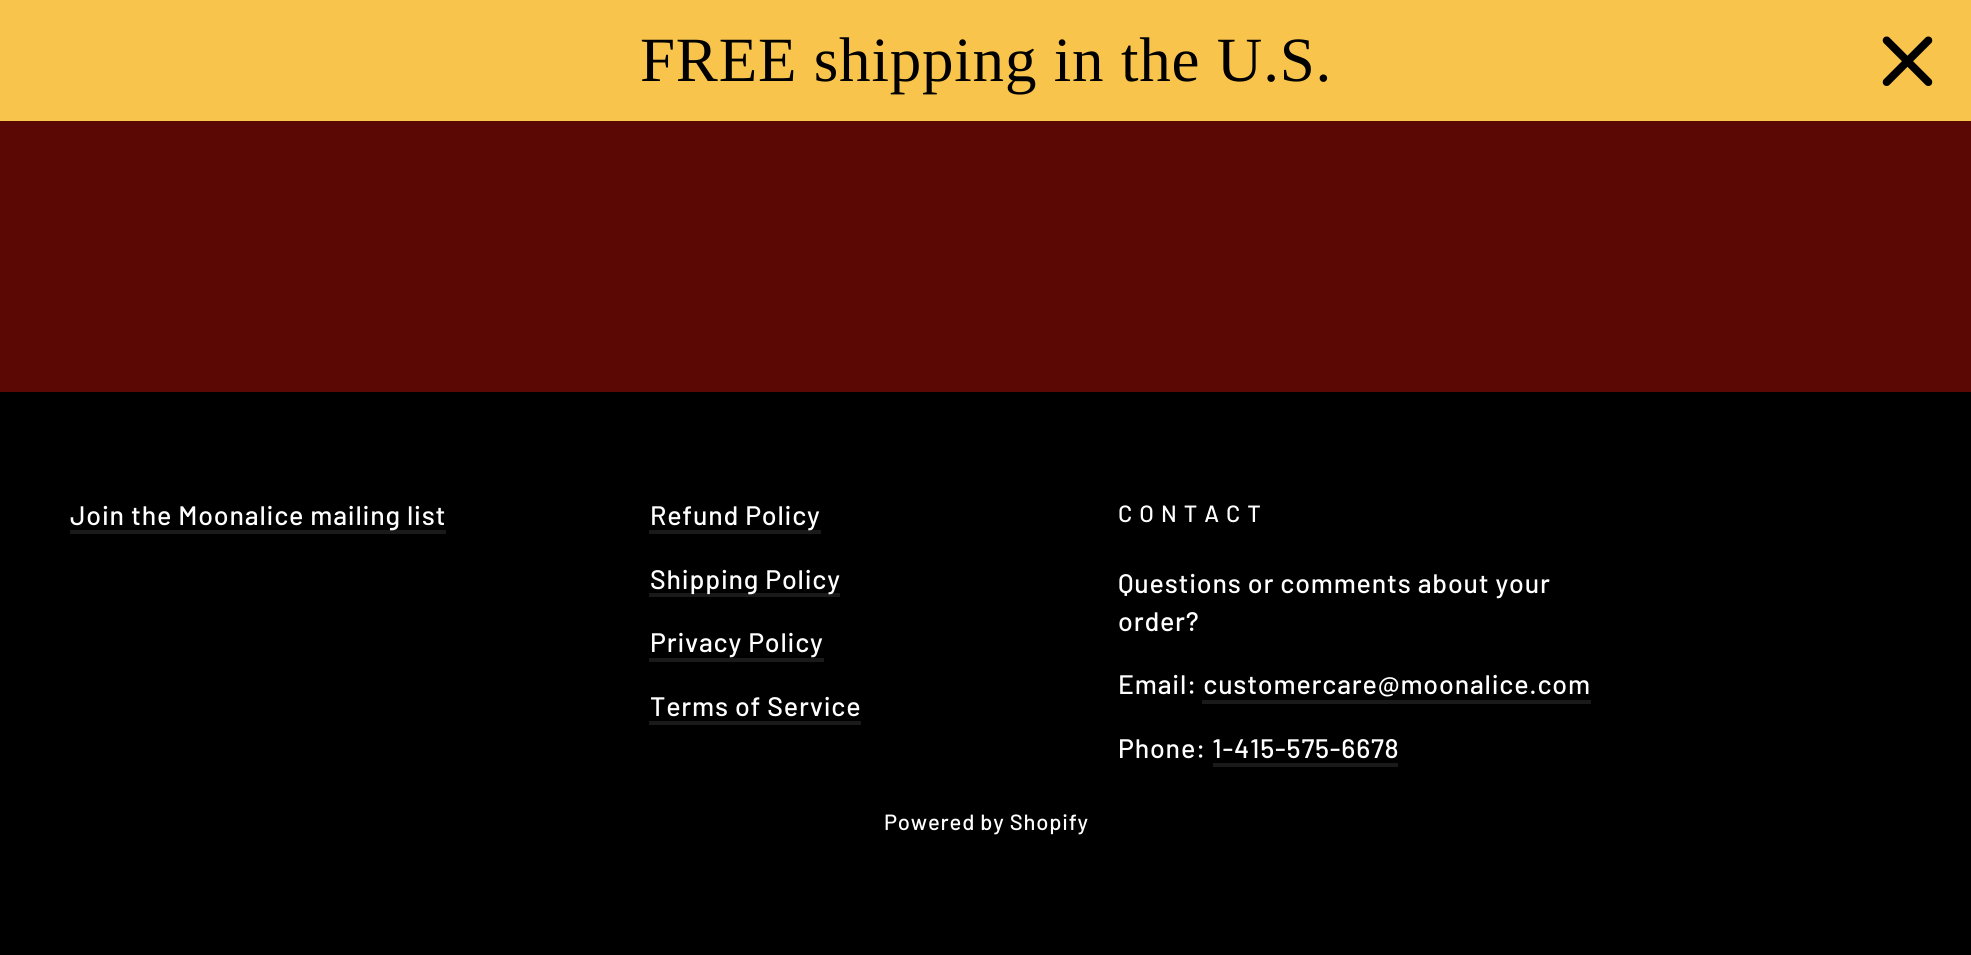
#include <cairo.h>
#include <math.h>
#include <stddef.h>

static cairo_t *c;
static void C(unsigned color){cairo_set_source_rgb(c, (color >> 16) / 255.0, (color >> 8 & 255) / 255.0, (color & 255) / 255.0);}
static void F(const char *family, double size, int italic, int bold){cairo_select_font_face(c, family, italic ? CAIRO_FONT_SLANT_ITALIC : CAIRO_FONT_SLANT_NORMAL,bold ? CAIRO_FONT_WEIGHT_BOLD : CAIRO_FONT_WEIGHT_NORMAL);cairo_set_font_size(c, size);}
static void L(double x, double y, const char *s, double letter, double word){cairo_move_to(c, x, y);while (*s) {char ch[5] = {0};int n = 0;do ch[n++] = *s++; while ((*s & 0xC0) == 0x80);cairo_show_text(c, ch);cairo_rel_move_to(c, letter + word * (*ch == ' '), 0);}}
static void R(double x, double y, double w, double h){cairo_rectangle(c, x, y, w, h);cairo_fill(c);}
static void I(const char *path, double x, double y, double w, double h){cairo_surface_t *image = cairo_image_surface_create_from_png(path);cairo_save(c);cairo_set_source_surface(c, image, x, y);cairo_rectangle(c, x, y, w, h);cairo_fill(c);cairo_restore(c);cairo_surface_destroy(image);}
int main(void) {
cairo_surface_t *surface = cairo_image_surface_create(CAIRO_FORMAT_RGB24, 1971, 955);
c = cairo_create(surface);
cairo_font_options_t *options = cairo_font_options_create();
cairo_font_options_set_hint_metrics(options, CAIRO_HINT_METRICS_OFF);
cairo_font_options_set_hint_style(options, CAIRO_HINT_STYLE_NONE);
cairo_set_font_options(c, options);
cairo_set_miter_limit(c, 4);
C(0x5b0703);
cairo_paint(c);
C(0xf9c44b);
R(0,0,1971,121);
F("Liberation Serif",63,0,0);
C(0x000000);
L(640,81,"FREE shipping in the U.S.",.8,0);
I("1.png",1882,36,51,50);
R(0,392,1971,563);
C(0x1a1a1a);
R(70,530,376,4);
F("Barlow Medium",26.75,0,0);
C(0xffffff);
L(70,525,"Join the Moonalice mailing list",.8,0);
C(0x1a1a1a);
R(649,530,172,4);
C(0xffffff);
L(650,525,"Refund Policy",.8,0);
C(0x1a1a1a);
R(649,593,191,4);
C(0xffffff);
L(650,589,"Shipping Policy",.8,0);
L(650,652,"Privacy Policy",.8,0);
C(0x1a1a1a);
R(649,658,175,4);
C(0xffffff);
L(650,716,"Terms of Service",.8,0);
C(0x1a1a1a);
R(649,721,212,4);
F("Barlow Medium",23.5,0,0);
C(0xffffff);
L(1118,522,"CONTACT",7,0);
F("Barlow Medium",26.75,0,0);
L(1118,593,"Questions or comments about your",.8,0);
L(1118,631,"order?",.8,0);
L(1118,694,"Email: customercare@moonalice.com",.8,0);
C(0x1a1a1a);
R(1202,700,389,4);
C(0xffffff);
L(1118,758,"Phone: 1-415-575-6678",.8,0);
C(0x1a1a1a);
R(1213,763,185,4);
F("Barlow Medium",22,0,0);
C(0xffffff);
L(884,830,"Powered by Shopify",.8,0);
cairo_surface_write_to_png(surface, "o.png");
cairo_font_options_destroy(options);
cairo_destroy(c);
cairo_surface_destroy(surface);
return 0;
}
